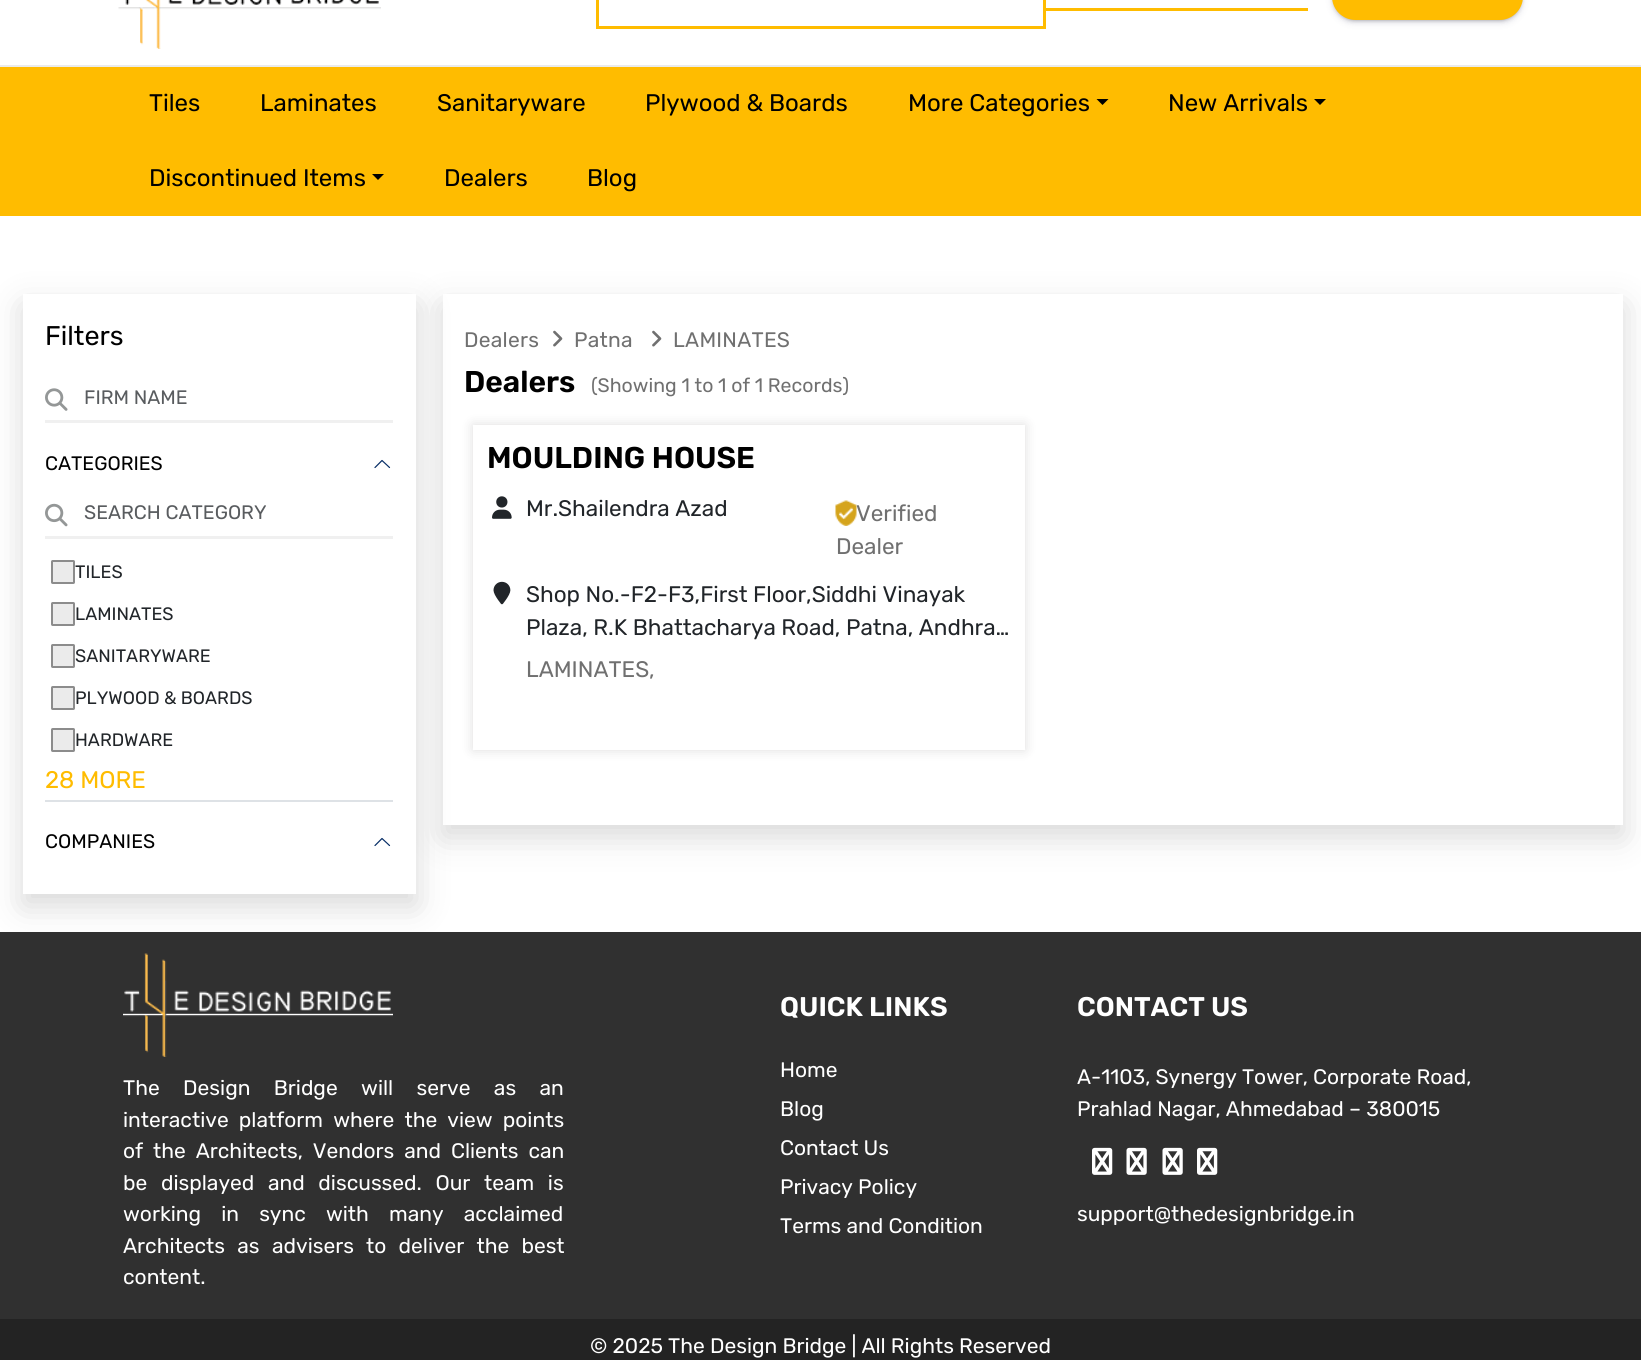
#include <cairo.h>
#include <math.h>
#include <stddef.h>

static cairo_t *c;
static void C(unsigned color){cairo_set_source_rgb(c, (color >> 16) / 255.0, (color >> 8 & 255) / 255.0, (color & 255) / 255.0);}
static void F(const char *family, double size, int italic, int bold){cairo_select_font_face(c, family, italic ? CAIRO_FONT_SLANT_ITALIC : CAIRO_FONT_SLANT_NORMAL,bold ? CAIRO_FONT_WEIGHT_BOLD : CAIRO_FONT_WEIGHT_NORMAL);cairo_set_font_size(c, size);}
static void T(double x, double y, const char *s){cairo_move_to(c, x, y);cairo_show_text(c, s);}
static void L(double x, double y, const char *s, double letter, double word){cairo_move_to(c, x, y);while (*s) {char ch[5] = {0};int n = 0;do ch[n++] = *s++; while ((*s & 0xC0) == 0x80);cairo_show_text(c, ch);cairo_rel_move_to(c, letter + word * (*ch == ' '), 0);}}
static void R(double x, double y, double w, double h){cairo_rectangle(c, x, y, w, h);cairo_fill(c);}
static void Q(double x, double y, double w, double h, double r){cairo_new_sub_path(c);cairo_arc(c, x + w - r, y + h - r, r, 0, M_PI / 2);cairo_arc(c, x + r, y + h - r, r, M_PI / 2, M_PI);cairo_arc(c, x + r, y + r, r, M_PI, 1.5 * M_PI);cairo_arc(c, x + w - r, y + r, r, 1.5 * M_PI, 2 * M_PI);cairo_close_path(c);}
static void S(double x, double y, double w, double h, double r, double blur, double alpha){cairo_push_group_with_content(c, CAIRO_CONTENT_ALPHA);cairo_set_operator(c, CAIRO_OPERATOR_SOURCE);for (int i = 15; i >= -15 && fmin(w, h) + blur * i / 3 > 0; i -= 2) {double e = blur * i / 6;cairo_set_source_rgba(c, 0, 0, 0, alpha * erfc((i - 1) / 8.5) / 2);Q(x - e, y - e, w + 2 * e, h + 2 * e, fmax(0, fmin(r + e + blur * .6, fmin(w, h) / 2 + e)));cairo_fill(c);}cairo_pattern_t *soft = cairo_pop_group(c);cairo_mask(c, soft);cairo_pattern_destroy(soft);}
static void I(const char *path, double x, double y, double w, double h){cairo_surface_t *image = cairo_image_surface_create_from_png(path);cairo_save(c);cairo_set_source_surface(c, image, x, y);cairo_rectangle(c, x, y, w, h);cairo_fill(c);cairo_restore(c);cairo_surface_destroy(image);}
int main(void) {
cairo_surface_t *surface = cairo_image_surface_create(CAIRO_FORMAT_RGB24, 1641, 1360);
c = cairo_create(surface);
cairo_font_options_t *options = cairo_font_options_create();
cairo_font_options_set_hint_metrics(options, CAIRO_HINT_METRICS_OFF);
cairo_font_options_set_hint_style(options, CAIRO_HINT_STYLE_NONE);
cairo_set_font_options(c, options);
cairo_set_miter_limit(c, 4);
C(0xffffff);
cairo_paint(c);
C(0xebebeb);
R(0,65,1641,2);
I("1.png",118,0,263,49);
cairo_rectangle(c,597.5,-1.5,447,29);
C(0xffbc00);
cairo_set_line_width(c,3);
cairo_stroke(c);
R(1046,8,262,3);
C(0x000000);
S(1334,-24,187,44,22,2,.3);
C(0x32325d);
S(1334,-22,187,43,21.5,4,.25);
C(0xffbc00);
Q(1332,-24,191,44,23.5);
cairo_fill(c);
R(0,67,1641,149);
F("Rubik",24,0,0);
C(0x000000);
T(149,111,"Tiles");
T(260,111,"Laminates");
T(437,111,"Sanitaryware");
T(645,111,"Plywood & Boards");
T(908,111,"More Categories");
cairo_new_path(c);
cairo_move_to(c,1096.5,99);
cairo_line_to(c,1108.5,99);
cairo_line_to(c,1102.5,105);
cairo_close_path(c);
cairo_fill(c);
T(1168,111,"New Arrivals");
cairo_new_path(c);
cairo_move_to(c,1314,99);
cairo_line_to(c,1326,99);
cairo_line_to(c,1320,105);
cairo_close_path(c);
cairo_fill(c);
T(149,186,"Discontinued Items");
cairo_new_path(c);
cairo_move_to(c,372,174);
cairo_line_to(c,384,174);
cairo_line_to(c,378,180);
cairo_close_path(c);
cairo_fill(c);
T(444,186,"Dealers");
T(587,186,"Blog");
C(0x303030);
R(0,932,1641,387);
I("8.png",123,953,270,104);
C(0x181818);
S(23,306,393,600,0,16,.17);
cairo_save(c);
cairo_set_fill_rule(c,CAIRO_FILL_RULE_EVEN_ODD);
cairo_new_path(c);
cairo_move_to(c,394,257);
cairo_line_to(c,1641,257);
cairo_line_to(c,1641,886);
cairo_line_to(c,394,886);
cairo_close_path(c);
cairo_move_to(c,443,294);
cairo_line_to(c,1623,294);
cairo_line_to(c,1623,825);
cairo_line_to(c,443,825);
cairo_close_path(c);
cairo_clip(c);
S(443,306,1180,531,0,16,.17);
cairo_restore(c);
C(0xffffff);
R(23,294,393,600);
F("Rubik",27,0,0);
C(0x000000);
T(45,345,"Filters");
I("2.png",45,388,23,23);
C(0xf0f0f0);
R(45,420,348,3);
F("Rubik",19.5,0,0);
C(0x595c5f);
T(84,404,"FIRM NAME");
C(0xdee2e6);
R(45,800,348,2);
C(0x000000);
T(45,470,"CATEGORIES");
cairo_new_path(c);
cairo_move_to(c,389.5,467.5);
cairo_line_to(c,382,460.5);
cairo_line_to(c,375,467.5);
C(0x052c65);
cairo_set_line_width(c,1.2);
cairo_set_line_cap(c,CAIRO_LINE_CAP_ROUND);
cairo_set_line_join(c,CAIRO_LINE_JOIN_ROUND);
cairo_stroke(c);
I("3.png",45,503,23,24);
C(0xf0f0f0);
R(45,536,348,3);
C(0x595c5f);
T(84,519,"SEARCH CATEGORY");
C(0xebebeb);
Q(52,561,22,22,.5);
cairo_fill_preserve(c);
C(0x8c8c8c);
cairo_set_line_width(c,2);
cairo_set_line_cap(c,CAIRO_LINE_CAP_BUTT);
cairo_set_line_join(c,CAIRO_LINE_JOIN_MITER);
cairo_stroke(c);
F("Rubik",18,0,0);
C(0x212529);
T(75,578,"TILES");
C(0xebebeb);
Q(52,603,22,22,.5);
cairo_fill_preserve(c);
C(0x8c8c8c);
cairo_stroke(c);
C(0x212529);
T(75,620,"LAMINATES");
C(0xebebeb);
Q(52,645,22,22,.5);
cairo_fill_preserve(c);
C(0x8c8c8c);
cairo_stroke(c);
C(0x212529);
T(75,662,"SANITARYWARE");
C(0xebebeb);
Q(52,687,22,22,.5);
cairo_fill_preserve(c);
C(0x8c8c8c);
cairo_stroke(c);
C(0x212529);
T(75,704,"PLYWOOD & BOARDS");
C(0xebebeb);
Q(52,729,22,22,.5);
cairo_fill_preserve(c);
C(0x8c8c8c);
cairo_stroke(c);
C(0x212529);
T(75,746,"HARDWARE");
F("Rubik",24,0,0);
C(0xffbc00);
T(45,788,"28 MORE");
F("Rubik",19.5,0,0);
C(0x000000);
T(45,848,"COMPANIES");
cairo_new_path(c);
cairo_move_to(c,389.5,845.5);
cairo_line_to(c,382,838.5);
cairo_line_to(c,375,845.5);
C(0x052c65);
cairo_set_line_width(c,1.2);
cairo_set_line_cap(c,CAIRO_LINE_CAP_ROUND);
cairo_set_line_join(c,CAIRO_LINE_JOIN_ROUND);
cairo_stroke(c);
F("Rubik",21,0,0);
C(0x707070);
L(464,347,"Dealers",.25,0);
I("4.png",553,330,10,17);
L(574,347,"Patna",.25,0);
I("4.png",652,330,10,17);
L(673,347,"LAMINATES",.25,0);
F("Rubik SemiBold",30,0,0);
C(0x000000);
T(464,392,"Dealers");
F("Rubik",19.5,0,0);
C(0x707070);
T(591,392,"(Showing 1 to 1 of 1 Records)");
C(0x231f20);
S(473,425,552,325,0,6,.15);
C(0xffffff);
R(473,425,552,325);
F("Rubik SemiBold",30,0,0);
C(0x000000);
T(487,468,"MOULDING HOUSE");
I("5.png",492,496,20,23);
F("Rubik",22.5,0,0);
C(0x212529);
T(526,516,"Mr.Shailendra Azad");
I("6.png",835,500,22,26);
C(0x707070);
T(856,521,"Verified");
T(836,554,"Dealer");
I("7.png",493,581,18,24);
C(0x212529);
T(526,602,"Shop No.-F2-F3,First Floor,Siddhi Vinayak");
T(526,635,"Plaza, R.K Bhattacharya Road, Patna, Andhra…");
C(0x707070);
T(526,677,"LAMINATES,");
F("Rubik",21,0,0);
C(0xffffff);
L(123,1095,"The Design Bridge will serve as an",0,18.25);
L(123,1127,"interactive platform where the view points",0,5);
L(123,1158,"of the Architects, Vendors and Clients can",0,4.75);
L(123,1190,"be displayed and discussed. Our team is",0,8.5);
L(123,1221,"working in sync with many acclaimed",0,15);
L(123,1253,"Architects as",0,7);
L(272,1253,"advisers to deliver the best",0,7);
T(123,1284,"content.");
F("Rubik SemiBold",27,0,0);
T(780,1016,"QUICK LINKS");
F("Rubik",21,0,0);
T(780,1077,"Home");
T(780,1116,"Blog");
T(780,1155,"Contact Us");
T(780,1194,"Privacy Policy");
T(780,1233,"Terms and Condition");
F("Rubik SemiBold",27,0,0);
T(1077,1016,"CONTACT US");
F("Rubik",21,0,0);
T(1077,1084,"A-1103, Synergy Tower, Corporate Road,");
T(1077,1116,"Prahlad Nagar, Ahmedabad – 380015");
I("9.png",1092,1147,21,28);
I("10.png",1126,1147,21,28);
I("10.png",1162,1147,21,28);
I("9.png",1197,1147,21,28);
T(1077,1221,"support@thedesignbridge.in");
C(0x232323);
R(0,1319,1641,41);
C(0xffffff);
T(590,1353,"© 2025 The Design Bridge | All Rights Reserved");
cairo_surface_write_to_png(surface, "o.png");
cairo_font_options_destroy(options);
cairo_destroy(c);
cairo_surface_destroy(surface);
return 0;
}
